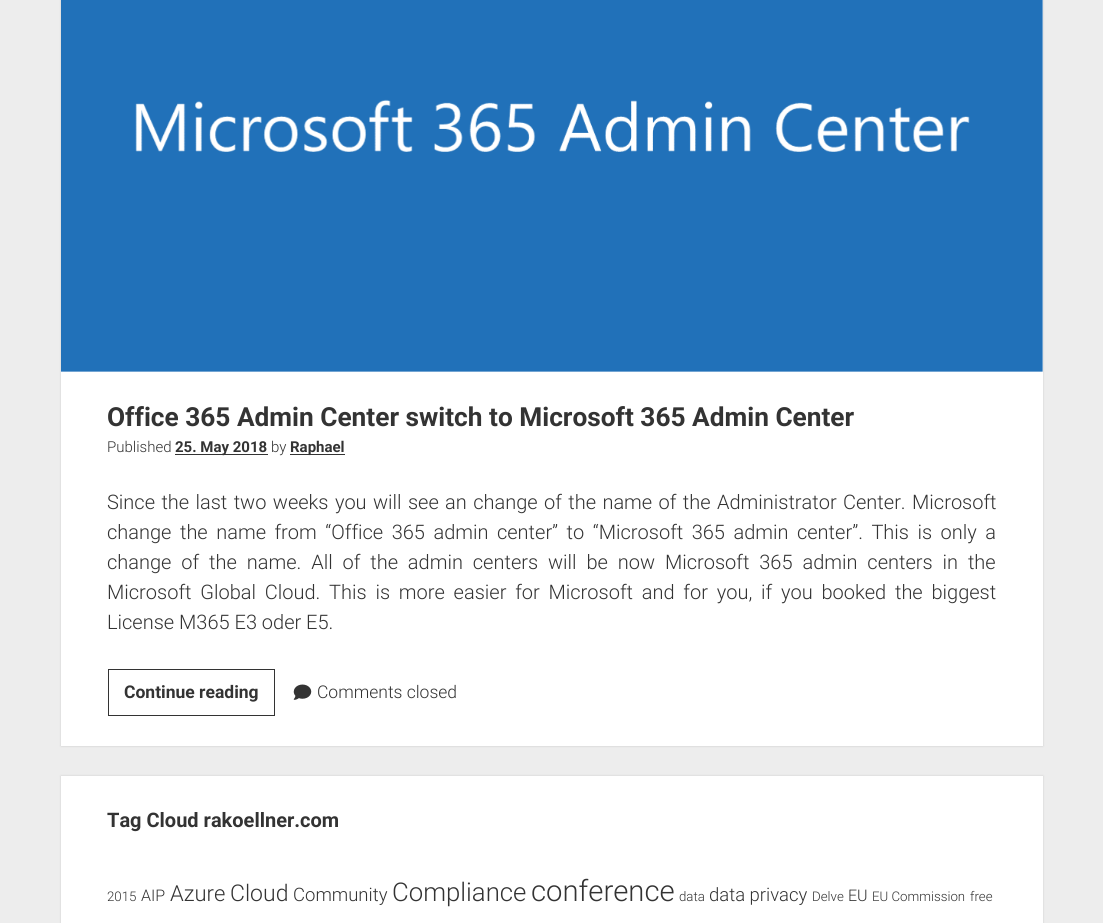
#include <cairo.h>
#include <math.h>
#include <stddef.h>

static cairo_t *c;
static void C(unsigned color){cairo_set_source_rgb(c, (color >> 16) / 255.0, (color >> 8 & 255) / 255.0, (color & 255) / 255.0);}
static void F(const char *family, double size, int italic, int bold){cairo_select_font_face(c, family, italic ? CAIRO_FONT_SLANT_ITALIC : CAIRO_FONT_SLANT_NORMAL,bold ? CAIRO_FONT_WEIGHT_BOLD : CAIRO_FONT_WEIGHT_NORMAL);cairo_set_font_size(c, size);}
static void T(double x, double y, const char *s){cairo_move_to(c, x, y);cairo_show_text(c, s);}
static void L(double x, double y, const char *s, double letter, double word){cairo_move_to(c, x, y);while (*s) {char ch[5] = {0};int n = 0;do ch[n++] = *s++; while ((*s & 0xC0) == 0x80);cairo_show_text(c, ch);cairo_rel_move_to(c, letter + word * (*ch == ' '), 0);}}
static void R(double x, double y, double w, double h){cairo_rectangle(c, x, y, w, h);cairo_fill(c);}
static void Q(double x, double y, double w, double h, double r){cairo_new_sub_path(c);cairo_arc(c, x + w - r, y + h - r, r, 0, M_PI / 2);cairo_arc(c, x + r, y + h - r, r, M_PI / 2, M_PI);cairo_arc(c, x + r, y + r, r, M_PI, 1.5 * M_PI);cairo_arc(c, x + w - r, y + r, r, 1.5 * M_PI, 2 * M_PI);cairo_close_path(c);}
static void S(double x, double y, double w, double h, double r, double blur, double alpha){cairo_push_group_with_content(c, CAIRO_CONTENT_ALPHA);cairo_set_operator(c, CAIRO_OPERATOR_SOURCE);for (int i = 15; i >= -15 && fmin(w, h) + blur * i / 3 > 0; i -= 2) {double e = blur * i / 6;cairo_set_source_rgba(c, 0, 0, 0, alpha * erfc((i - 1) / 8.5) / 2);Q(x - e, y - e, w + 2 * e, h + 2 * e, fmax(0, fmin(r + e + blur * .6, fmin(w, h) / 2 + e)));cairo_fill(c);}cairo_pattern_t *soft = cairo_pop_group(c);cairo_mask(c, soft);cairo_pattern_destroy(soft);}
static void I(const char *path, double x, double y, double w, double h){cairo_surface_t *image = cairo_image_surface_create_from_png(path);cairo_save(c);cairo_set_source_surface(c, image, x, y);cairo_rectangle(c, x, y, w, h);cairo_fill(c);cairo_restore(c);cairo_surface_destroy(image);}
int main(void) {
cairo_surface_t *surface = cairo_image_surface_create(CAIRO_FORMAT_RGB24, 1103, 923);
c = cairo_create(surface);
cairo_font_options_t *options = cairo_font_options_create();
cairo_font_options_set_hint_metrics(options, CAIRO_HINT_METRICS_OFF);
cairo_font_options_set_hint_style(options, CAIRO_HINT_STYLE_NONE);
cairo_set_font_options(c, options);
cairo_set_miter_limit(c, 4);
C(0xededed);
cairo_paint(c);
C(0x3a3a3a);
S(61,-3,982,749,0,1,.2);
C(0xffffff);
R(61,0,982,746);
I("1.png",61,0,982,372);
F("Roboto",26.25,0,1);
C(0x333333);
T(107,426,"Office 365 Admin Center switch to Microsoft 365 Admin Center");
F("Roboto Light",15,0,0);
T(107,452,"Published");
R(175,454,93,1);
F("Roboto",15,0,1);
T(175,452,"25. May 2018");
F("Roboto Light",15,0,0);
T(271,452,"by");
R(290,454,55,1);
F("Roboto",15,0,1);
T(290,452,"Raphael");
F("Roboto Light",20,0,0);
L(107,509,"Since the last two weeks you will see an change of the name of the Administrator Center. Microsoft",0,1.5);
L(107,539,"change the name from “Office 365 admin center” to “Microsoft 365 admin center”. This is only a",0,3.6);
L(107,569,"change of the name. All of the admin centers will be now Microsoft 365 admin centers in the",0,5);
L(107,599,"Microsoft Global Cloud. This is more easier for Microsoft and for you, if you booked the biggest",0,3.9);
T(107,629,"License M365 E3 oder E5.");
cairo_rectangle(c,108.5,669.5,166,46);
cairo_set_line_width(c,1);
cairo_stroke(c);
F("Roboto",17.5,0,1);
T(124,698,"Continue reading");
I("2.png",293,684,19,16);
F("Roboto Light",17.5,0,0);
T(317,698,"Comments closed");
C(0x3a3a3a);
S(61,776,982,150,0,1,.2);
C(0xffffff);
R(61,776,982,147);
F("Roboto",20,0,1);
C(0x333333);
T(107,827,"Tag Cloud rakoellner.com");
F("Roboto Light",13.25,0,0);
T(107,901,"2015");
F("Roboto Light",16,0,0);
T(141,901,"AIP");
F("Roboto Light",22,0,0);
T(170,901,"Azure");
F("Roboto Light",23,0,0);
T(230,901,"Cloud");
F("Roboto Light",18.5,0,0);
T(293,901,"Community");
F("Roboto Light",25.75,0,0);
T(392,901,"Compliance");
F("Roboto Light",29.25,0,0);
T(531,901,"conference");
F("Roboto Light",13.25,0,0);
T(679,901,"data");
F("Roboto Light",18.5,0,0);
T(709,901,"data privacy");
F("Roboto Light",13.25,0,0);
T(812,901,"Delve");
F("Roboto Light",16,0,0);
T(848,901,"EU");
F("Roboto Light",13.25,0,0);
T(872,901,"EU Commission");
T(970,901,"free");
cairo_surface_write_to_png(surface, "o.png");
cairo_font_options_destroy(options);
cairo_destroy(c);
cairo_surface_destroy(surface);
return 0;
}
